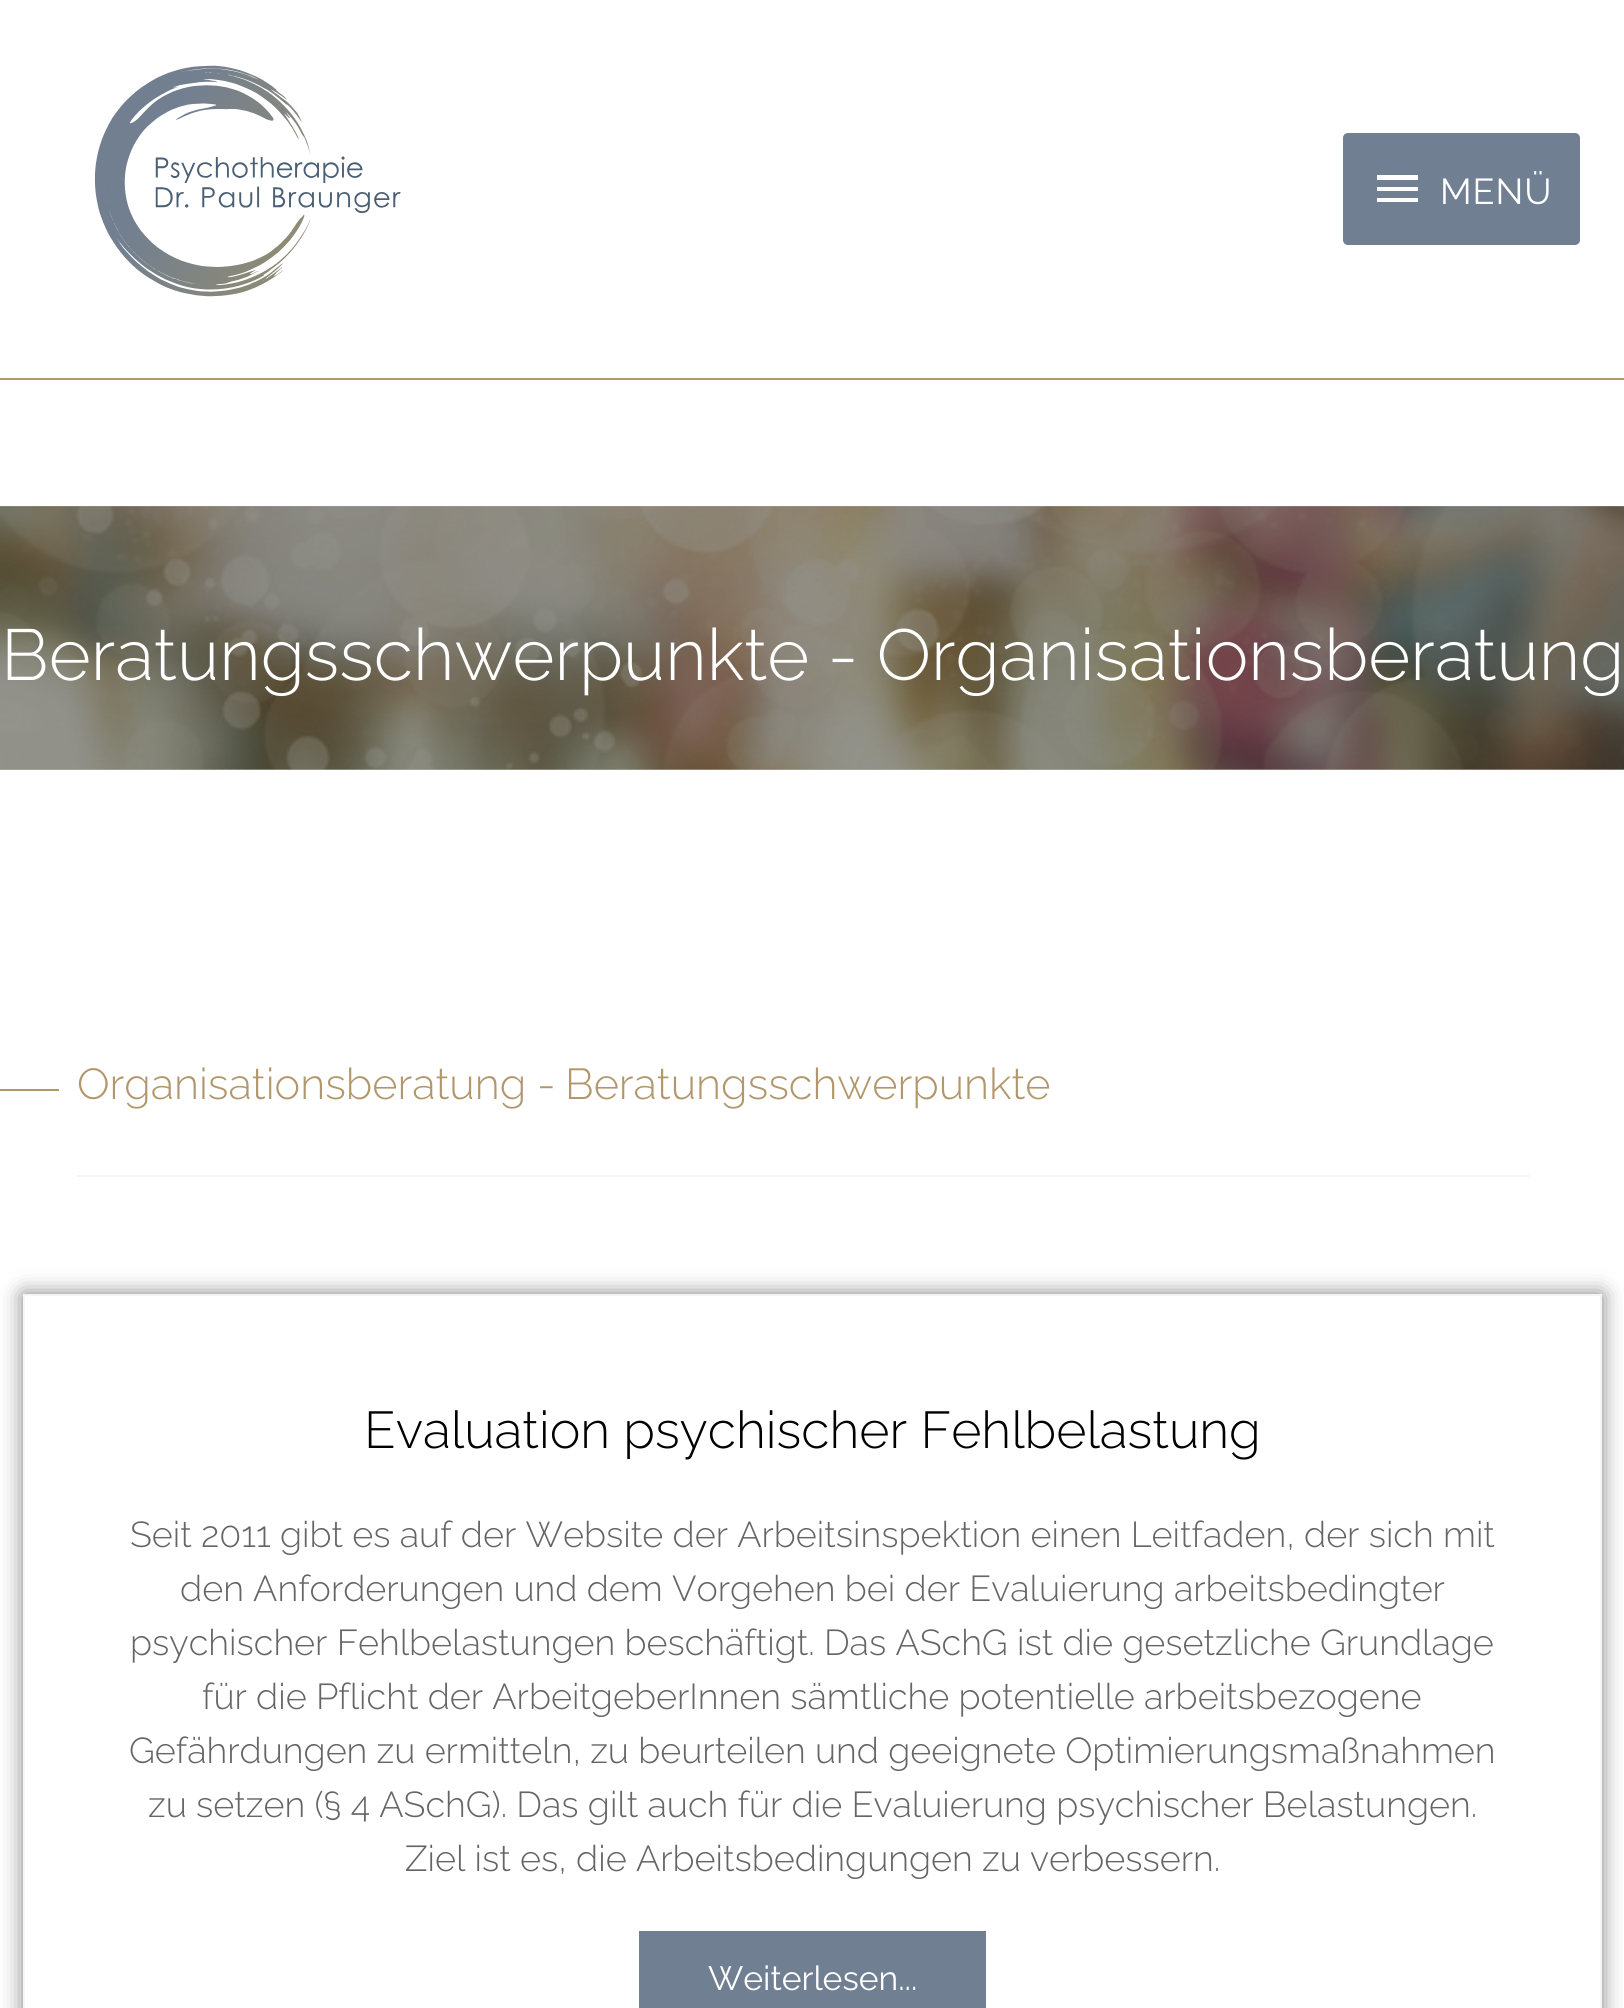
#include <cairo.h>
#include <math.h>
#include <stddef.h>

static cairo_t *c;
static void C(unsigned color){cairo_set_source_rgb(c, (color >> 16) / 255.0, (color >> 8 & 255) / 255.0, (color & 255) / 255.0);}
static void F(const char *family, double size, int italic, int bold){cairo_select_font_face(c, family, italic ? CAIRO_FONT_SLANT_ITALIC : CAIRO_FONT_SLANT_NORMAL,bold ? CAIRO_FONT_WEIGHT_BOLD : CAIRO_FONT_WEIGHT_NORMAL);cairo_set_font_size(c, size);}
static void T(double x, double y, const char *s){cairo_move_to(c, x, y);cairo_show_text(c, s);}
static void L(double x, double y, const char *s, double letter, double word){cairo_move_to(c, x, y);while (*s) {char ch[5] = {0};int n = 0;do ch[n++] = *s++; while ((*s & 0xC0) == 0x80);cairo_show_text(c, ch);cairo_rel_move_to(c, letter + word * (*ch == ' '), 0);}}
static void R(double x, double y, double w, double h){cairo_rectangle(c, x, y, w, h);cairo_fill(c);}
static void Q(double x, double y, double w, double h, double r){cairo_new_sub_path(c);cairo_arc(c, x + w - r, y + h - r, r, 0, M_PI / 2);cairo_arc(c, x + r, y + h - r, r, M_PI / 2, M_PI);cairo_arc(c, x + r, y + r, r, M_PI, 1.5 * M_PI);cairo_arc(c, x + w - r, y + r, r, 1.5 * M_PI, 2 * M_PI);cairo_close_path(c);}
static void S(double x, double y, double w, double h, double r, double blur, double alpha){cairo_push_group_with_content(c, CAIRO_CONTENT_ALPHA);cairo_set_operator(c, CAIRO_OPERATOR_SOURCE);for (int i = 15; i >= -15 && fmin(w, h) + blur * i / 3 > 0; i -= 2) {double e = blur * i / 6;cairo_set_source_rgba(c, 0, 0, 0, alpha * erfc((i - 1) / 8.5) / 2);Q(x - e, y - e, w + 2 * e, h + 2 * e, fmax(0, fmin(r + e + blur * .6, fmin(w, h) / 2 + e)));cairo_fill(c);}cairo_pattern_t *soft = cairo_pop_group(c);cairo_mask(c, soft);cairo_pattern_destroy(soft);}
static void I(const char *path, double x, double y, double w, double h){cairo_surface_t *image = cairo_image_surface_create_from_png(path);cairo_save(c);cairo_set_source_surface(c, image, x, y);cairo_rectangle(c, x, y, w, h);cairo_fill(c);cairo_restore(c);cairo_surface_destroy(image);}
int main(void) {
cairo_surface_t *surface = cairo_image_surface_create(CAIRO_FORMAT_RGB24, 1624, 2008);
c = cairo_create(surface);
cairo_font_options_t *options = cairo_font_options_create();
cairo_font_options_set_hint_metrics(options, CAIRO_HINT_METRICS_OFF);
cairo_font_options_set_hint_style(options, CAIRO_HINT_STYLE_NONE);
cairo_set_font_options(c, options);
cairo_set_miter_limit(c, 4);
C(0xffffff);
cairo_paint(c);
C(0xb2b2ad);
R(0,506,1624,264);
C(0xb1976b);
R(0,378,1624,2);
I("1.png",94,65,307,232);
C(0x717f92);
Q(1343,133,237,112,5);
cairo_fill(c);
C(0xffffff);
cairo_new_path(c);
cairo_move_to(c,1377,175);
cairo_line_to(c,1418,175);
cairo_line_to(c,1418,180);
cairo_line_to(c,1377,180);
cairo_close_path(c);
cairo_move_to(c,1377,191);
cairo_line_to(c,1377,187);
cairo_line_to(c,1418,187);
cairo_line_to(c,1418,191);
cairo_close_path(c);
cairo_move_to(c,1377,202);
cairo_line_to(c,1377,198);
cairo_line_to(c,1418,198);
cairo_line_to(c,1418,202);
cairo_close_path(c);
cairo_fill(c);
F("Raleway",36,0,0);
L(1440,204,"MENÜ",1,0);
I("2.png",0,506,1624,264);
F("Raleway Light",72,0,0);
T(1,680,"Beratungsschwerpunkte - Organisationsberatung");
C(0xb1976b);
R(0,1089,59,2);
F("Raleway Light",43.25,0,0);
T(77,1099,"Organisationsberatung -");
T(565,1099,"Beratungsschwerpunkte");
C(0xf5f5f5);
R(77,1175,1453,2);
cairo_save(c);
cairo_set_fill_rule(c,CAIRO_FILL_RULE_EVEN_ODD);
cairo_new_path(c);
cairo_move_to(c,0,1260);
cairo_line_to(c,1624,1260);
cairo_line_to(c,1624,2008);
cairo_line_to(c,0,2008);
cairo_close_path(c);
cairo_move_to(c,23,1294);
cairo_line_to(c,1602,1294);
cairo_line_to(c,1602,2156);
cairo_line_to(c,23,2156);
cairo_close_path(c);
cairo_clip(c);
C(0x000000);
S(23,1294,1579,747,0,11,.5);
cairo_restore(c);
cairo_rectangle(c,24,1295,1577,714);
cairo_stroke(c);
F("Raleway Light",51.75,0,0);
C(0x000000);
T(364,1448,"Evaluation psychischer Fehlbelastung");
F("Raleway Light",36,0,0);
C(0x656565);
T(130,1547,"Seit 2011 gibt es auf der Website der Arbeitsinspektion einen Leitfaden, der sich mit");
T(180,1601,"den Anforderungen und dem Vorgehen bei der Evaluierung arbeitsbedingter");
T(130,1655,"psychischer Fehlbelastungen beschäftigt. Das ASchG ist die gesetzliche Grundlage");
T(202,1709,"für die Pflicht der ArbeitgeberInnen sämtliche potentielle arbeitsbezogene");
T(129,1763,"Gefährdungen zu ermitteln, zu beurteilen und geeignete Optimierungsmaßnahmen");
T(148,1817,"zu setzen (§ 4 ASchG). Das gilt auch für die Evaluierung psychischer Belastungen.");
T(405,1871,"Ziel ist es, die Arbeitsbedingungen zu verbessern.");
C(0x717f92);
R(639,1931,347,77);
F("Raleway",33.75,0,0);
C(0xffffff);
T(708,1990,"Weiterlesen...");
cairo_surface_write_to_png(surface, "o.png");
cairo_font_options_destroy(options);
cairo_destroy(c);
cairo_surface_destroy(surface);
return 0;
}
